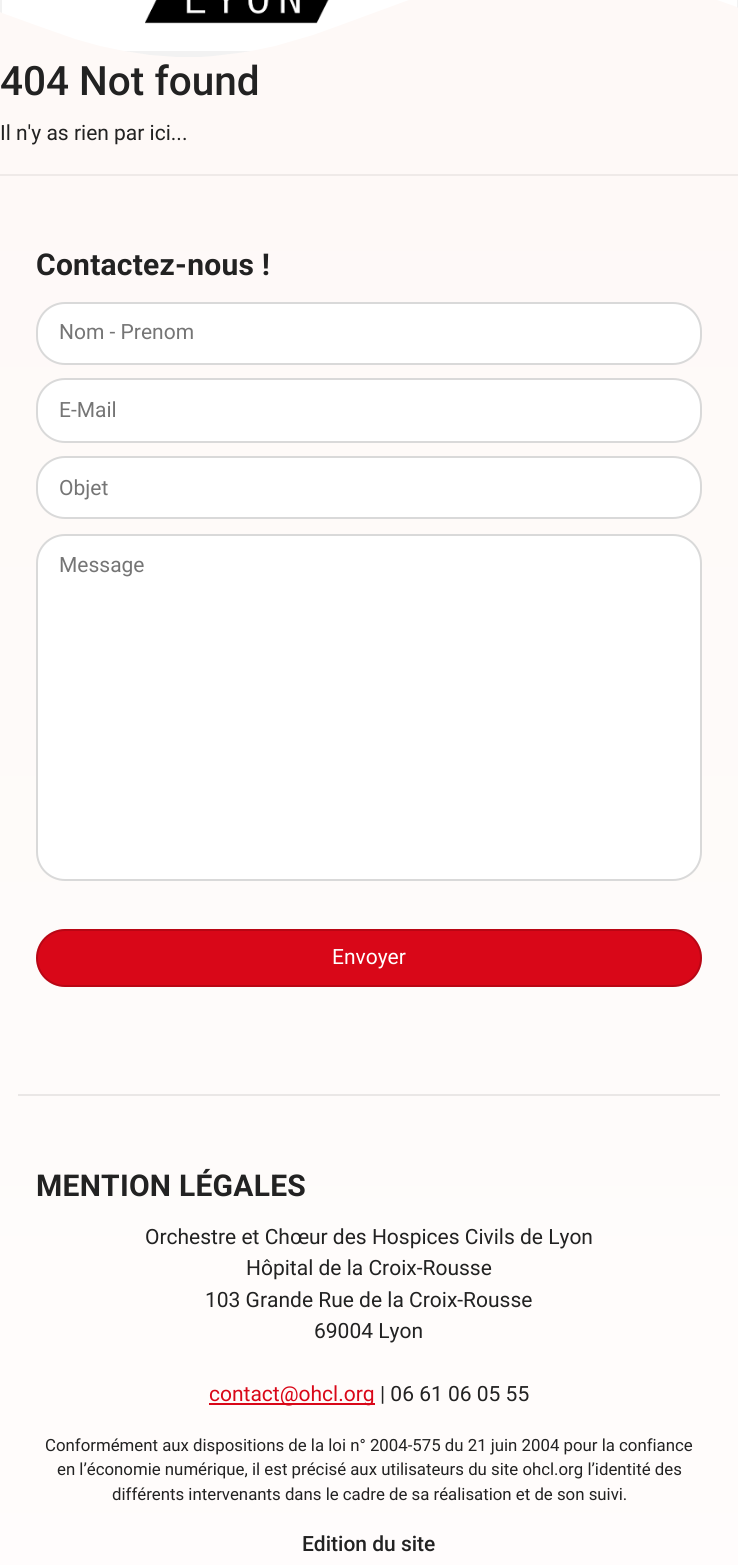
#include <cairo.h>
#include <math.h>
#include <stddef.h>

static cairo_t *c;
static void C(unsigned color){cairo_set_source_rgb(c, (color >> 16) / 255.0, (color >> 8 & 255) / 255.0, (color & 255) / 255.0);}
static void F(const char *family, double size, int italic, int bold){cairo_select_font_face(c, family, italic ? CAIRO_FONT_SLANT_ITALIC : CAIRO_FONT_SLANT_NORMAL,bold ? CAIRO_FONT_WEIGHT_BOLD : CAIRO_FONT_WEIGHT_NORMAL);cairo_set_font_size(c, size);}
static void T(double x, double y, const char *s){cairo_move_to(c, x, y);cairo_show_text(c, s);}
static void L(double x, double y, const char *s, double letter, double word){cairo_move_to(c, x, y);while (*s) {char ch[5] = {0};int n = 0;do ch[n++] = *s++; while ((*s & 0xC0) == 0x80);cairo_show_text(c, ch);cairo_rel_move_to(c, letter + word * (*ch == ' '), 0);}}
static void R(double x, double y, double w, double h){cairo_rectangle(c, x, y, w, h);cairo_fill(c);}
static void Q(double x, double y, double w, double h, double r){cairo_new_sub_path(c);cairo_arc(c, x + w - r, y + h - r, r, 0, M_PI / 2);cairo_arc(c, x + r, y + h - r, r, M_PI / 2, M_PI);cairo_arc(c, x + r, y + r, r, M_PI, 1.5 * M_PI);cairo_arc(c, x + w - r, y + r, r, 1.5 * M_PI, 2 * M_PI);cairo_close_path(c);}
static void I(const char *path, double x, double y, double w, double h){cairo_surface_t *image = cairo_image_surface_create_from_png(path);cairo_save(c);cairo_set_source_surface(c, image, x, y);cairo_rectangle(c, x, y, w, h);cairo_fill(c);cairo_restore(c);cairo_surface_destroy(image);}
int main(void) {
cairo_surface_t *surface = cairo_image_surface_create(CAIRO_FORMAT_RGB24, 738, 1565);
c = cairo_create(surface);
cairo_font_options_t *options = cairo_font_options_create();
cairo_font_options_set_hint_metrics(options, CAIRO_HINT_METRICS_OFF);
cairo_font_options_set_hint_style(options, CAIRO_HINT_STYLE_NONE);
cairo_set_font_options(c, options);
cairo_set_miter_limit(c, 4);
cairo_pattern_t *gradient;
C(0xffffff);
cairo_paint(c);
gradient = cairo_pattern_create_linear(369,-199,369,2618);
cairo_pattern_add_color_stop_rgba(gradient,0,0.996,0.973,0.965,1);
cairo_pattern_add_color_stop_rgba(gradient,1,1,1,1,1);
cairo_set_source(c,gradient);
cairo_pattern_destroy(gradient);
R(0,0,738,1565);
C(0xffffff);
cairo_new_path(c);
cairo_move_to(c,2,-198);
cairo_line_to(c,2,13);
cairo_line_to(c,38,26);
cairo_line_to(c,75,39);
cairo_line_to(c,100,46);
cairo_line_to(c,124,51);
cairo_line_to(c,251,51);
cairo_line_to(c,275,46);
cairo_line_to(c,313,35);
cairo_line_to(c,338,26);
cairo_line_to(c,425,-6);
cairo_line_to(c,463,-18);
cairo_line_to(c,488,-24);
cairo_line_to(c,500,-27);
cairo_line_to(c,525,-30);
cairo_line_to(c,538,-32);
cairo_line_to(c,563,-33);
cairo_line_to(c,575,-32);
cairo_line_to(c,600,-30);
cairo_line_to(c,625,-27);
cairo_line_to(c,650,-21);
cairo_line_to(c,675,-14);
cairo_line_to(c,700,-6);
cairo_line_to(c,737,7);
cairo_line_to(c,737,-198);
cairo_close_path(c);
cairo_fill(c);
C(0xf2f2f2);
cairo_new_path(c);
cairo_move_to(c,737,-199);
cairo_line_to(c,737,7);
cairo_line_to(c,738,8);
cairo_line_to(c,738,-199);
cairo_close_path(c);
cairo_fill(c);
cairo_new_path(c);
cairo_move_to(c,251,51);
cairo_line_to(c,124,51);
cairo_line_to(c,150,55);
cairo_line_to(c,176,57);
cairo_line_to(c,200,57);
cairo_line_to(c,213,56);
cairo_line_to(c,238,53);
cairo_close_path(c);
cairo_fill(c);
cairo_new_path(c);
cairo_move_to(c,0,-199);
cairo_line_to(c,0,12);
cairo_line_to(c,2,13);
cairo_line_to(c,2,-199);
cairo_close_path(c);
cairo_fill(c);
I("1.png",145,0,184,24);
F("Roboto Medium",40.5,0,0);
C(0x222222);
T(0,95,"404 Not found");
F("Roboto",21,0,0);
T(0,140,"Il n'y as rien par ici...");
C(0xefeae8);
R(0,174,738,2);
C(0xeae7e6);
R(18,1094,702,2);
F("Roboto",30,0,1);
C(0x222222);
L(36,275,"Contactez-nous !",.25,0);
C(0xffffff);
Q(36,302,666,63,29);
cairo_fill(c);
Q(37,303,664,61,28);
cairo_set_source_rgba(c,0,0,0,0.15);
cairo_stroke(c);
F("Roboto",21,0,0);
C(0x757575);
T(59,339,"Nom - Prenom");
C(0xffffff);
Q(36,378,666,65,29);
cairo_fill(c);
Q(37,379,664,63,28);
cairo_set_source_rgba(c,0,0,0,0.15);
cairo_stroke(c);
C(0x757575);
T(59,417,"E-Mail");
C(0xffffff);
Q(36,456,666,63,29);
cairo_fill(c);
Q(37,457,664,61,28);
cairo_set_source_rgba(c,0,0,0,0.15);
cairo_stroke(c);
C(0x757575);
T(59,495,"Objet");
C(0xffffff);
Q(36,534,666,347,29);
cairo_fill(c);
Q(37,535,664,345,28);
cairo_set_source_rgba(c,0,0,0,0.15);
cairo_stroke(c);
C(0x757575);
T(59,572,"Message");
C(0xd90718);
Q(36,929,666,58,29);
cairo_fill(c);
Q(37,930,664,56,28);
cairo_set_source_rgba(c,0,0,0,0.15);
cairo_stroke(c);
C(0xffffff);
T(332,964,"Envoyer");
F("Roboto",30,0,1);
C(0x222222);
L(36,1196,"MENTION LÉGALES",.25,0);
F("Roboto",21,0,0);
T(145,1244,"Orchestre et Chœur des Hospices Civils de Lyon");
T(246,1275,"Hôpital de la Croix-Rousse");
T(205,1307,"103 Grande Rue de la Croix-Rousse");
T(314,1338,"69004 Lyon");
C(0xd90718);
R(209,1403,166,2);
T(209,1401,"contact@ohcl.org");
C(0x222222);
T(380,1401,"| 06 61 06 05 55");
F("Roboto",16.8,0,0);
T(45,1451,"Conformément aux dispositions de la loi n° 2004-575 du 21 juin 2004 pour la confiance");
T(57,1475,"en l’économie numérique, il est précisé aux utilisateurs du site ohcl.org l’identité des");
T(112,1500,"différents intervenants dans le cadre de sa réalisation et de son suivi.");
F("Roboto Medium",21,0,0);
T(302,1551,"Edition du site");
cairo_surface_write_to_png(surface, "o.png");
cairo_font_options_destroy(options);
cairo_destroy(c);
cairo_surface_destroy(surface);
return 0;
}
